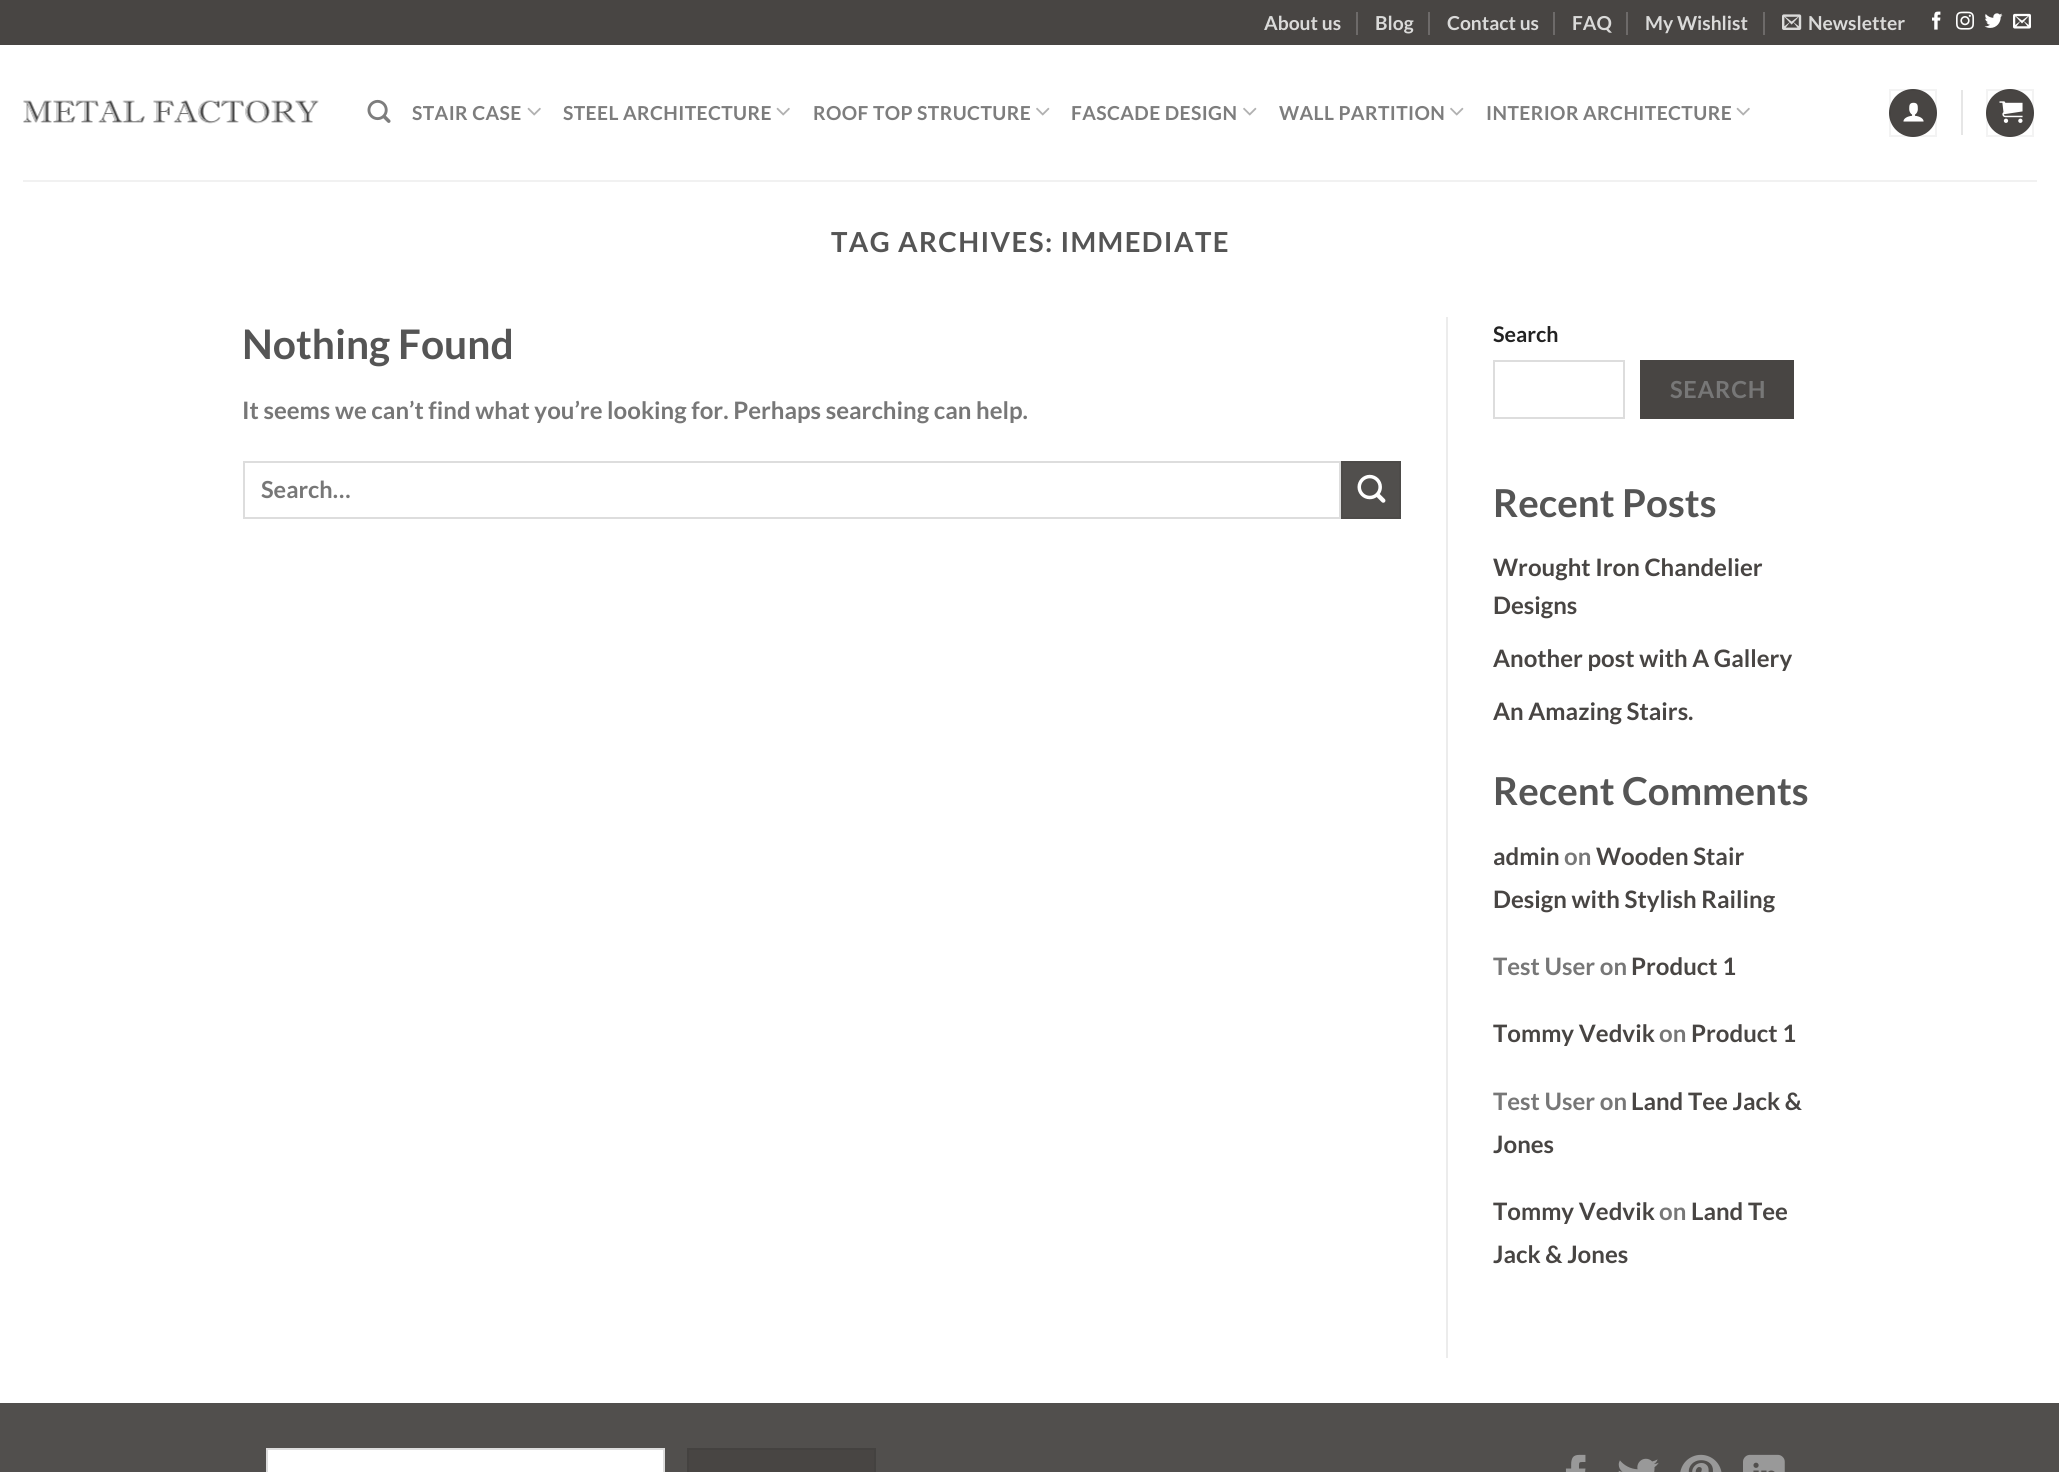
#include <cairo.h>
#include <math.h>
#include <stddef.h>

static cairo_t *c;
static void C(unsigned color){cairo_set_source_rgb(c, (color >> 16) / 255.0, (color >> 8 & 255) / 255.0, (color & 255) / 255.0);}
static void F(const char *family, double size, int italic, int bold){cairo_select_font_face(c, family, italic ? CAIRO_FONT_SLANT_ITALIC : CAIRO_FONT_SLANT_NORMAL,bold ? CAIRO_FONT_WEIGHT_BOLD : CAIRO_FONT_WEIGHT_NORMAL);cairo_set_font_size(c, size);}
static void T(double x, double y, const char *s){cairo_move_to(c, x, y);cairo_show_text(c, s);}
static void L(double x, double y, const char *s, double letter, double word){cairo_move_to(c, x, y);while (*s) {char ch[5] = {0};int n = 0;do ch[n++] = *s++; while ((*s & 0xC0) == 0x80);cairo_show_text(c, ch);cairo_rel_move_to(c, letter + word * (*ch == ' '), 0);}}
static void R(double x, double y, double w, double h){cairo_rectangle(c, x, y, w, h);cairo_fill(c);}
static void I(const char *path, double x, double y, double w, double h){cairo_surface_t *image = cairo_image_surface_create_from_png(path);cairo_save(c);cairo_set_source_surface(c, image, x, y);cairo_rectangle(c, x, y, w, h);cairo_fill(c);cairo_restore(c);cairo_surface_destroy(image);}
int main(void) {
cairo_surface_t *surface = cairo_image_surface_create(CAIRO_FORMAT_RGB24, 2059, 1472);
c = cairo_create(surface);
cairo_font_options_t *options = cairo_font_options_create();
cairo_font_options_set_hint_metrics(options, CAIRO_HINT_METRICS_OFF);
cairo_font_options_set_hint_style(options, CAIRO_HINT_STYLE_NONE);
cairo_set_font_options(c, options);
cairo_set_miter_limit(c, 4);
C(0xffffff);
cairo_paint(c);
C(0x484543);
R(0,0,2059,45);
F("Lato",19.25,0,1);
C(0xdadad9);
T(1264,30,"About us");
C(0x6d6a69);
R(1356,12,2,23);
C(0xdadad9);
T(1375,30,"Blog");
C(0x6d6a69);
R(1428,12,2,23);
C(0xdadad9);
T(1447,30,"Contact us");
C(0x6d6a69);
R(1553,12,2,23);
C(0xdadad9);
T(1572,30,"FAQ");
C(0x6d6a69);
R(1626,12,2,23);
C(0xdadad9);
T(1645,30,"My Wishlist");
C(0x6d6a69);
R(1763,12,2,23);
I("1.png",1782,14,20,16);
C(0xdadad9);
T(1808,30,"Newsletter");
I("2.png",1932,11,9,19);
I("3.png",1956,11,18,19);
I("4.png",1984,13,19,15);
I("5.png",2013,13,18,16);
I("6.png",23,100,296,24);
I("7.png",367,99,24,24);
C(0x7d7d7d);
L(412,120,"STAIR CASE",.4,0);
I("8.png",527,107,14,9);
L(563,120,"STEEL ARCHITECTURE",.4,0);
I("8.png",776,107,14,9);
L(813,120,"ROOF TOP STRUCTURE",.4,0);
I("9.png",1036,107,14,9);
L(1071,120,"FASCADE DESIGN",.4,0);
I("9.png",1243,107,14,9);
L(1279,120,"WALL PARTITION",.4,0);
I("9.png",1450,107,14,9);
L(1486,120,"INTERIOR ARCHITECTURE",.4,0);
I("8.png",1736,107,14,9);
C(0x484543);
cairo_arc(c,1913,113,24,0,2 * M_PI);
cairo_fill(c);
cairo_rectangle(c,1890,90,46,46);
cairo_set_source_rgba(c,0,0,0,0.05);
cairo_stroke(c);
I("10.png",1903,102,21,20);
C(0xe6e6e6);
R(1961,90,2,45);
C(0x484543);
cairo_arc(c,2010,113,24,0,2 * M_PI);
cairo_fill(c);
cairo_rectangle(c,1987,90,46,46);
cairo_set_source_rgba(c,0,0,0,0.05);
cairo_stroke(c);
I("11.png",1999,101,24,22);
C(0xf1f1f1);
R(23,180,2014,2);
F("Lato",27.6,0,1);
C(0x555555);
L(831,252,"TAG ARCHIVES: IMMEDIATE",1.4,0);
F("Lato",40.75,0,1);
T(242,359,"Nothing Found");
F("Lato",24,0,1);
C(0x777777);
T(242,419,"It seems we can’t find what you’re looking for. Perhaps searching can help.");
cairo_rectangle(c,244,462,1096,56);
C(0xdddddd);
cairo_stroke(c);
F("Lato",23.5,0,1);
C(0x777777);
T(261,498,"Search…");
C(0x514f4d);
cairo_rectangle(c,1342,462,58,56);
cairo_fill_preserve(c);
C(0x4d4b49);
cairo_stroke(c);
I("12.png",1357,474,29,29);
C(0xececec);
R(1446,317,2,1041);
F("Lato",21.5,0,1);
C(0x222222);
T(1493,342,"Search");
cairo_rectangle(c,1494,361,130,57);
C(0xdddddd);
cairo_stroke(c);
C(0x484543);
R(1640,360,154,59);
F("Lato",23.5,0,1);
C(0x777777);
L(1670,398,"SEARCH",.75,0);
F("Lato",38.5,0,1);
C(0x555555);
T(1493,517,"Recent Posts");
F("Lato",24,0,1);
C(0x484543);
T(1493,576,"Wrought Iron Chandelier");
T(1493,614,"Designs");
T(1493,667,"Another post with A Gallery");
T(1493,720,"An Amazing Stairs.");
F("Lato",38.5,0,1);
C(0x555555);
T(1493,805,"Recent Comments");
F("Lato",24,0,1);
C(0x484543);
T(1493,865,"admin");
C(0x777777);
T(1564,865,"on");
C(0x484543);
T(1596,865,"Wooden Stair");
T(1493,908,"Design with Stylish Railing");
C(0x777777);
T(1493,975,"Test User on");
C(0x484543);
T(1631,975,"Product 1");
T(1493,1042,"Tommy Vedvik");
C(0x777777);
T(1659,1042,"on");
C(0x484543);
T(1691,1042,"Product 1");
C(0x777777);
T(1493,1110,"Test User on");
C(0x484543);
T(1631,1110,"Land Tee Jack &");
T(1493,1153,"Jones");
T(1493,1220,"Tommy Vedvik");
C(0x777777);
T(1659,1220,"on");
C(0x484543);
T(1691,1220,"Land Tee");
T(1493,1263,"Jack & Jones");
C(0x514f4d);
R(0,1403,2059,69);
C(0xffffff);
cairo_rectangle(c,267,1449,397,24);
cairo_fill_preserve(c);
C(0xdddddd);
cairo_stroke(c);
C(0x484543);
cairo_rectangle(c,688,1449,187,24);
cairo_fill_preserve(c);
C(0x444240);
cairo_stroke(c);
I("13.png",1565,1454,21,18);
I("14.png",1618,1458,41,14);
I("15.png",1680,1454,42,18);
I("16.png",1743,1454,42,18);
cairo_surface_write_to_png(surface, "o.png");
cairo_font_options_destroy(options);
cairo_destroy(c);
cairo_surface_destroy(surface);
return 0;
}
